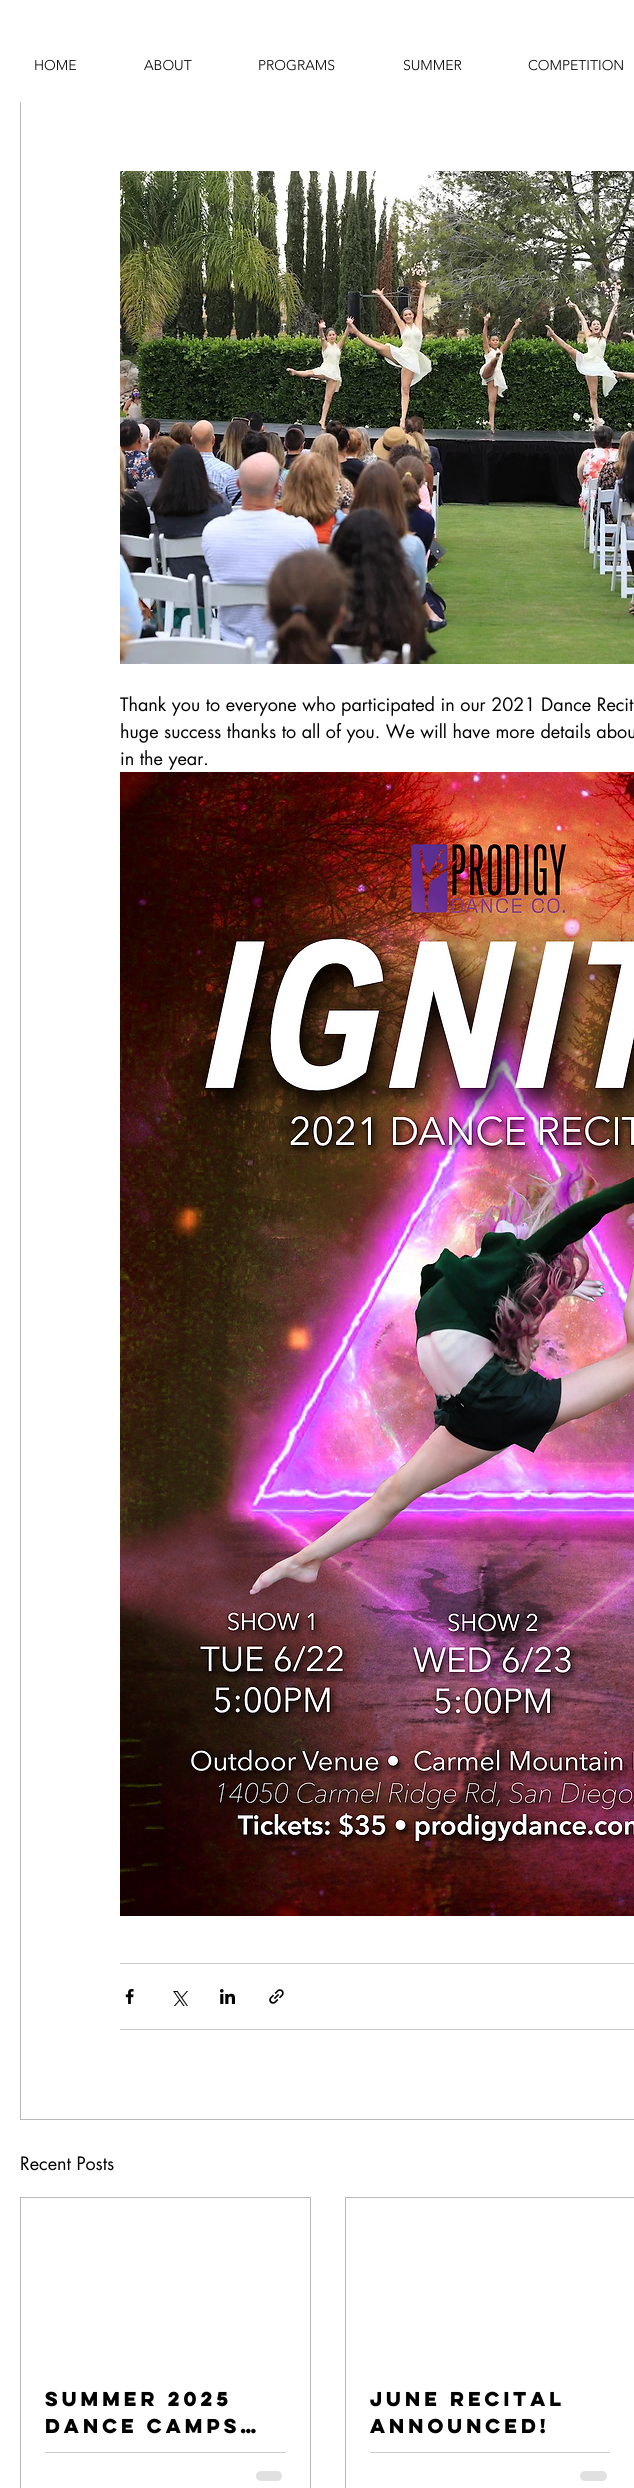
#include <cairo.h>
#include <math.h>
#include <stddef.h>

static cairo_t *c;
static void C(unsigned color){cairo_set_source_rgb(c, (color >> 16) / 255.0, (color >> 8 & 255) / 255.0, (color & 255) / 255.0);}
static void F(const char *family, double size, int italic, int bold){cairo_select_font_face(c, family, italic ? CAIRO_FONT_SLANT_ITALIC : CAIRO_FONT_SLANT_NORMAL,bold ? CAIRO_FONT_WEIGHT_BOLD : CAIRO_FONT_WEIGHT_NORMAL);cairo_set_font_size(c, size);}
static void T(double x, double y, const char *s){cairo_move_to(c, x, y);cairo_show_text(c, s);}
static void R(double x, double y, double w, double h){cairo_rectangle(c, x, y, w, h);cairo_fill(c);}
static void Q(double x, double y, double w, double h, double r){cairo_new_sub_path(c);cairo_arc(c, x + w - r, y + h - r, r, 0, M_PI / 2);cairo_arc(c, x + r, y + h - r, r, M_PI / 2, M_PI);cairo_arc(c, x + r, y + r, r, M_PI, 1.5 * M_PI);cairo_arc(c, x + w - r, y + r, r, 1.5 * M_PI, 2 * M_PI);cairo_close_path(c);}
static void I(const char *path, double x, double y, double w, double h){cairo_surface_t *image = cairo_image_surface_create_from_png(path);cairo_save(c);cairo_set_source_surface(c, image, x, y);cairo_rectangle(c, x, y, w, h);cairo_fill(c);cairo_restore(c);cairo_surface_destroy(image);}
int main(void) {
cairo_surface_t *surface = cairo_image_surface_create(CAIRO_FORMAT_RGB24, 634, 2488);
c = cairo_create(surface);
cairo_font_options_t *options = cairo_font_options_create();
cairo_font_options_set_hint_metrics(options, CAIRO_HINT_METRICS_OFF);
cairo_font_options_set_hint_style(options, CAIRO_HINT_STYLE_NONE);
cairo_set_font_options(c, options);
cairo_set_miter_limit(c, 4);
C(0xffffff);
cairo_paint(c);
cairo_rectangle(c,20.5,-.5,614,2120);
C(0xb8b8b7);
cairo_set_line_width(c,1);
cairo_stroke(c);
C(0xffffff);
R(20,0,1,102);
F("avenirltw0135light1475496 Light",14,0,0);
C(0x000000);
T(34,70,"HOME");
T(144,70,"ABOUT");
T(258,70,"PROGRAMS");
T(403,70,"SUMMER");
T(528,70,"COMPETITION");
I("1.png",120,171,514,493);
F("futura",18,0,0);
T(120,711,"Thank you to everyone who participated in our 2021 Dance Recit");
T(120,738,"huge success thanks to all of you. We will have more details abou");
T(120,765,"in the year.");
I("2.png",120,772,514,1144);
C(0xcccccc);
R(120,1963,514,1);
I("3.png",125,1989,9,15);
I("4.png",173,1991,15,15);
I("5.png",220,1989,15,15);
I("6.png",269,1989,15,15);
R(120,2029,514,1);
C(0x000000);
T(20,2170,"Recent Posts");
cairo_rectangle(c,20.5,2197.5,290,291);
C(0xb8b8b7);
cairo_stroke(c);
F("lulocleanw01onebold",18,0,1);
C(0x000000);
T(45,2406,"Summer 2025");
T(45,2433,"Dance Camps…");
C(0xcccccc);
R(45,2452,241,1);
C(0xe0e0e0);
Q(256,2471,26,10,5);
cairo_fill(c);
cairo_rectangle(c,345.5,2197.5,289,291);
C(0xb8b8b7);
cairo_stroke(c);
C(0x000000);
T(370,2406,"June Recital");
T(370,2433,"announced!");
C(0xcccccc);
R(370,2452,240,1);
C(0xe0e0e0);
Q(580,2471,27,10,5);
cairo_fill(c);
cairo_surface_write_to_png(surface, "o.png");
cairo_font_options_destroy(options);
cairo_destroy(c);
cairo_surface_destroy(surface);
return 0;
}
